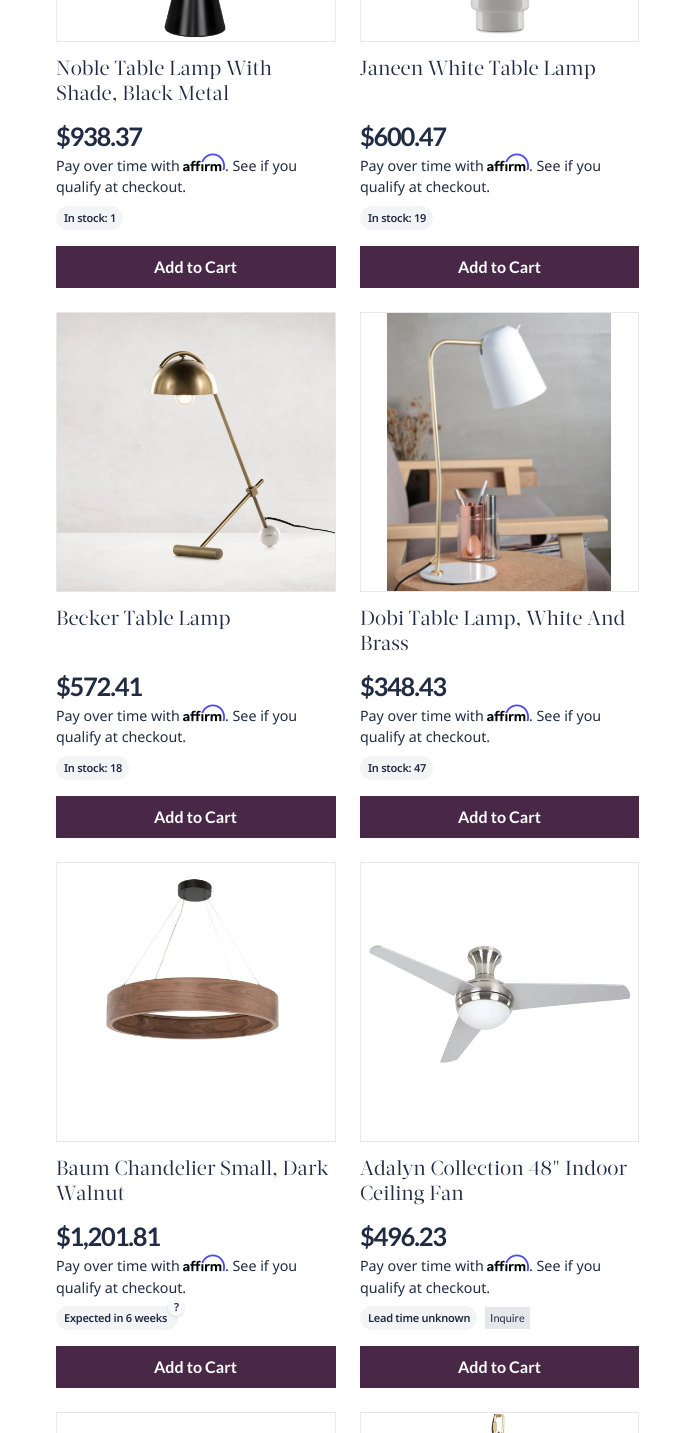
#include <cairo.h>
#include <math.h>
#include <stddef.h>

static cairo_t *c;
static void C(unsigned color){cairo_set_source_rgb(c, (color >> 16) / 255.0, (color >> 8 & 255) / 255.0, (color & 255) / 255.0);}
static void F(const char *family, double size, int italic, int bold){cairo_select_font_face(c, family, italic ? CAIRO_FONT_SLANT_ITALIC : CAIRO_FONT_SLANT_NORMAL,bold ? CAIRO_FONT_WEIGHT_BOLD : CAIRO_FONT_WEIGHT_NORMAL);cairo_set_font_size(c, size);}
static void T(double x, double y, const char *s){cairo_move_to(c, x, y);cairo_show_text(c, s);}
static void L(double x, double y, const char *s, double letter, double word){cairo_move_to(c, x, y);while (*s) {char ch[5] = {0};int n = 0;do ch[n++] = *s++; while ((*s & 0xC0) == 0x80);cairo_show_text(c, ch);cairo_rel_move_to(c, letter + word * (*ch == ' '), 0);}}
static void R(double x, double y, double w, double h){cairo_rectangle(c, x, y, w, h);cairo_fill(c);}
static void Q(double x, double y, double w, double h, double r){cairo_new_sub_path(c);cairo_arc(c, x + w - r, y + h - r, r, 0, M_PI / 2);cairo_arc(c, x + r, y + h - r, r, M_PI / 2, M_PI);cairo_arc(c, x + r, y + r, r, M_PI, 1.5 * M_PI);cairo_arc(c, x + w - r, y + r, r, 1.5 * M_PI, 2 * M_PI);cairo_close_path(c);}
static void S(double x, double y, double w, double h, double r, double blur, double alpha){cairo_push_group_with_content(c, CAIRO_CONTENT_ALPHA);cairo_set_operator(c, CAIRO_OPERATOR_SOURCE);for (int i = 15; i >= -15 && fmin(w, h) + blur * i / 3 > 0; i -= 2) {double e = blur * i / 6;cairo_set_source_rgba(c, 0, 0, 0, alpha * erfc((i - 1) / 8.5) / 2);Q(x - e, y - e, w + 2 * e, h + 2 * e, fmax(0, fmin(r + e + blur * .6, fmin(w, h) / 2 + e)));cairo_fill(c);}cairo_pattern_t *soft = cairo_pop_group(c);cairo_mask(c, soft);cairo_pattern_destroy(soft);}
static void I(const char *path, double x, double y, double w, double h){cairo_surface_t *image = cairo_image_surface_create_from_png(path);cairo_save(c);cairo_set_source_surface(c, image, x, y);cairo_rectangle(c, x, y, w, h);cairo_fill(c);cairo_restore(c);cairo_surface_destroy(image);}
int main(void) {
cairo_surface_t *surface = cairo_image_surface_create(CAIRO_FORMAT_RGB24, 695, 1433);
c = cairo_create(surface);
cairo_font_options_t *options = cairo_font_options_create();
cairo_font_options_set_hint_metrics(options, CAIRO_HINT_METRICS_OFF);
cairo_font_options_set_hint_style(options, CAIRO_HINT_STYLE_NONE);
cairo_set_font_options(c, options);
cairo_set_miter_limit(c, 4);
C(0xffffff);
cairo_paint(c);
cairo_rectangle(c,56.5,-.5,279,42);
C(0xe5e7eb);
cairo_set_line_width(c,1);
cairo_stroke(c);
I("1.png",164,0,62,38);
F("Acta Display",20.25,0,0);
C(0x212b43);
T(56,75,"Noble Table Lamp With");
T(56,100,"Shade, Black Metal");
F("Lato",25.5,0,1);
L(56,146,"$938.37",-1.25,0);
F("Noto Sans",14.25,0,0);
T(56,171,"Pay over time with");
I("3.png",183,160,39,12);
I("2.png",201,153,24,18);
T(225,171,". See if you");
T(56,192,"qualify at checkout.");
C(0xf3f4f6);
Q(56,206,67,24,12);
cairo_fill(c);
F("Noto Sans SemiBold",11,0,0);
C(0x212b43);
L(64,222,"In stock: 1",-.25,0);
C(0x482846);
R(56,246,280,42);
F("Lato",16,0,1);
C(0xffffff);
T(154,273,"Add to Cart");
cairo_rectangle(c,360.5,-.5,278,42);
C(0xe5e7eb);
cairo_stroke(c);
I("4.png",470,0,60,34);
F("Acta Display",20.25,0,0);
C(0x212b43);
T(360,75,"Janeen White Table Lamp");
F("Lato",25.5,0,1);
L(360,146,"$600.47",-1.25,0);
F("Noto Sans",14.25,0,0);
T(360,171,"Pay over time with");
I("3.png",487,160,39,12);
I("2.png",505,153,24,18);
T(529,171,". See if you");
T(360,192,"qualify at checkout.");
C(0xf3f4f6);
Q(360,206,73,24,12);
cairo_fill(c);
F("Noto Sans SemiBold",11,0,0);
C(0x212b43);
L(368,222,"In stock: 19",-.25,0);
C(0x482846);
R(360,246,279,42);
F("Lato",16,0,1);
C(0xffffff);
T(458,273,"Add to Cart");
cairo_rectangle(c,56.5,312.5,279,279);
C(0xe5e7eb);
cairo_stroke(c);
I("5.png",57,313,278,278);
F("Acta Display",20.25,0,0);
C(0x212b43);
T(56,625,"Becker Table Lamp");
F("Lato",25.5,0,1);
L(56,696,"$572.41",-1.25,0);
F("Noto Sans",14.25,0,0);
T(56,721,"Pay over time with");
I("3.png",183,710,39,12);
I("6.png",201,704,24,18);
T(225,721,". See if you");
T(56,742,"qualify at checkout.");
C(0xf3f4f6);
Q(56,756,73,24,12);
cairo_fill(c);
F("Noto Sans SemiBold",11,0,0);
C(0x212b43);
L(64,772,"In stock: 18",-.25,0);
C(0x482846);
R(56,796,280,42);
F("Lato",16,0,1);
C(0xffffff);
T(154,823,"Add to Cart");
cairo_rectangle(c,360.5,312.5,278,279);
C(0xe5e7eb);
cairo_stroke(c);
I("7.png",387,313,224,278);
F("Acta Display",20.25,0,0);
C(0x212b43);
T(360,625,"Dobi Table Lamp, White And");
T(360,650,"Brass");
F("Lato",25.5,0,1);
L(360,696,"$348.43",-1.25,0);
F("Noto Sans",14.25,0,0);
T(360,721,"Pay over time with");
I("3.png",487,710,39,12);
I("6.png",505,704,24,18);
T(529,721,". See if you");
T(360,742,"qualify at checkout.");
C(0xf3f4f6);
Q(360,756,73,24,12);
cairo_fill(c);
F("Noto Sans SemiBold",11,0,0);
C(0x212b43);
L(368,772,"In stock: 47",-.25,0);
C(0x482846);
R(360,796,279,42);
F("Lato",16,0,1);
C(0xffffff);
T(458,823,"Add to Cart");
cairo_rectangle(c,56.5,862.5,279,279);
C(0xe5e7eb);
cairo_stroke(c);
I("8.png",106,878,174,163);
F("Acta Display",20.25,0,0);
C(0x212b43);
T(56,1175,"Baum Chandelier Small, Dark");
T(56,1200,"Walnut");
F("Lato",25.5,0,1);
L(56,1246,"$1,201.81",-1.25,0);
F("Noto Sans",14.25,0,0);
T(56,1271,"Pay over time with");
I("3.png",183,1260,39,12);
I("6.png",201,1254,24,18);
T(225,1271,". See if you");
T(56,1293,"qualify at checkout.");
C(0xf3f4f6);
Q(56,1306,122,24,12);
cairo_fill(c);
C(0x000000);
S(169,1302,14,14,7,1,.1);
S(168,1301,16,16,8,1.5,.1);
C(0xf9fafb);
cairo_arc(c,176,1308,8,0,2 * M_PI);
cairo_fill(c);
F("Noto Sans SemiBold",11,0,0);
C(0x212b43);
T(174,1311,"?");
L(64,1322,"Expected in 6 weeks",-.25,0);
C(0x482846);
R(56,1346,280,42);
F("Lato",16,0,1);
C(0xffffff);
T(154,1373,"Add to Cart");
cairo_rectangle(c,360.5,862.5,278,279);
C(0xe5e7eb);
cairo_stroke(c);
I("9.png",369,945,262,118);
F("Acta Display",20.25,0,0);
C(0x212b43);
T(360,1175,"Adalyn Collection 48\" Indoor");
T(360,1200,"Ceiling Fan");
F("Lato",25.5,0,1);
L(360,1246,"$496.23",-1.25,0);
F("Noto Sans",14.25,0,0);
T(360,1271,"Pay over time with");
I("3.png",487,1260,39,12);
I("6.png",505,1254,24,18);
T(529,1271,". See if you");
T(360,1293,"qualify at checkout.");
C(0xf3f4f6);
Q(360,1306,117,24,12);
cairo_fill(c);
F("Noto Sans SemiBold",11,0,0);
C(0x212b43);
L(368,1322,"Lead time unknown",-.25,0);
C(0xe5e7eb);
R(485,1307,45,22);
F("Lato",11,0,0);
C(0x212b43);
T(490,1322,"Inquire");
C(0x482846);
R(360,1346,279,42);
F("Lato",16,0,1);
C(0xffffff);
T(458,1373,"Add to Cart");
cairo_rectangle(c,56.5,1412.5,279,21);
C(0xe5e7eb);
cairo_stroke(c);
cairo_rectangle(c,360.5,1412.5,278,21);
cairo_stroke(c);
I("10.png",491,1414,16,19);
cairo_surface_write_to_png(surface, "o.png");
cairo_font_options_destroy(options);
cairo_destroy(c);
cairo_surface_destroy(surface);
return 0;
}
